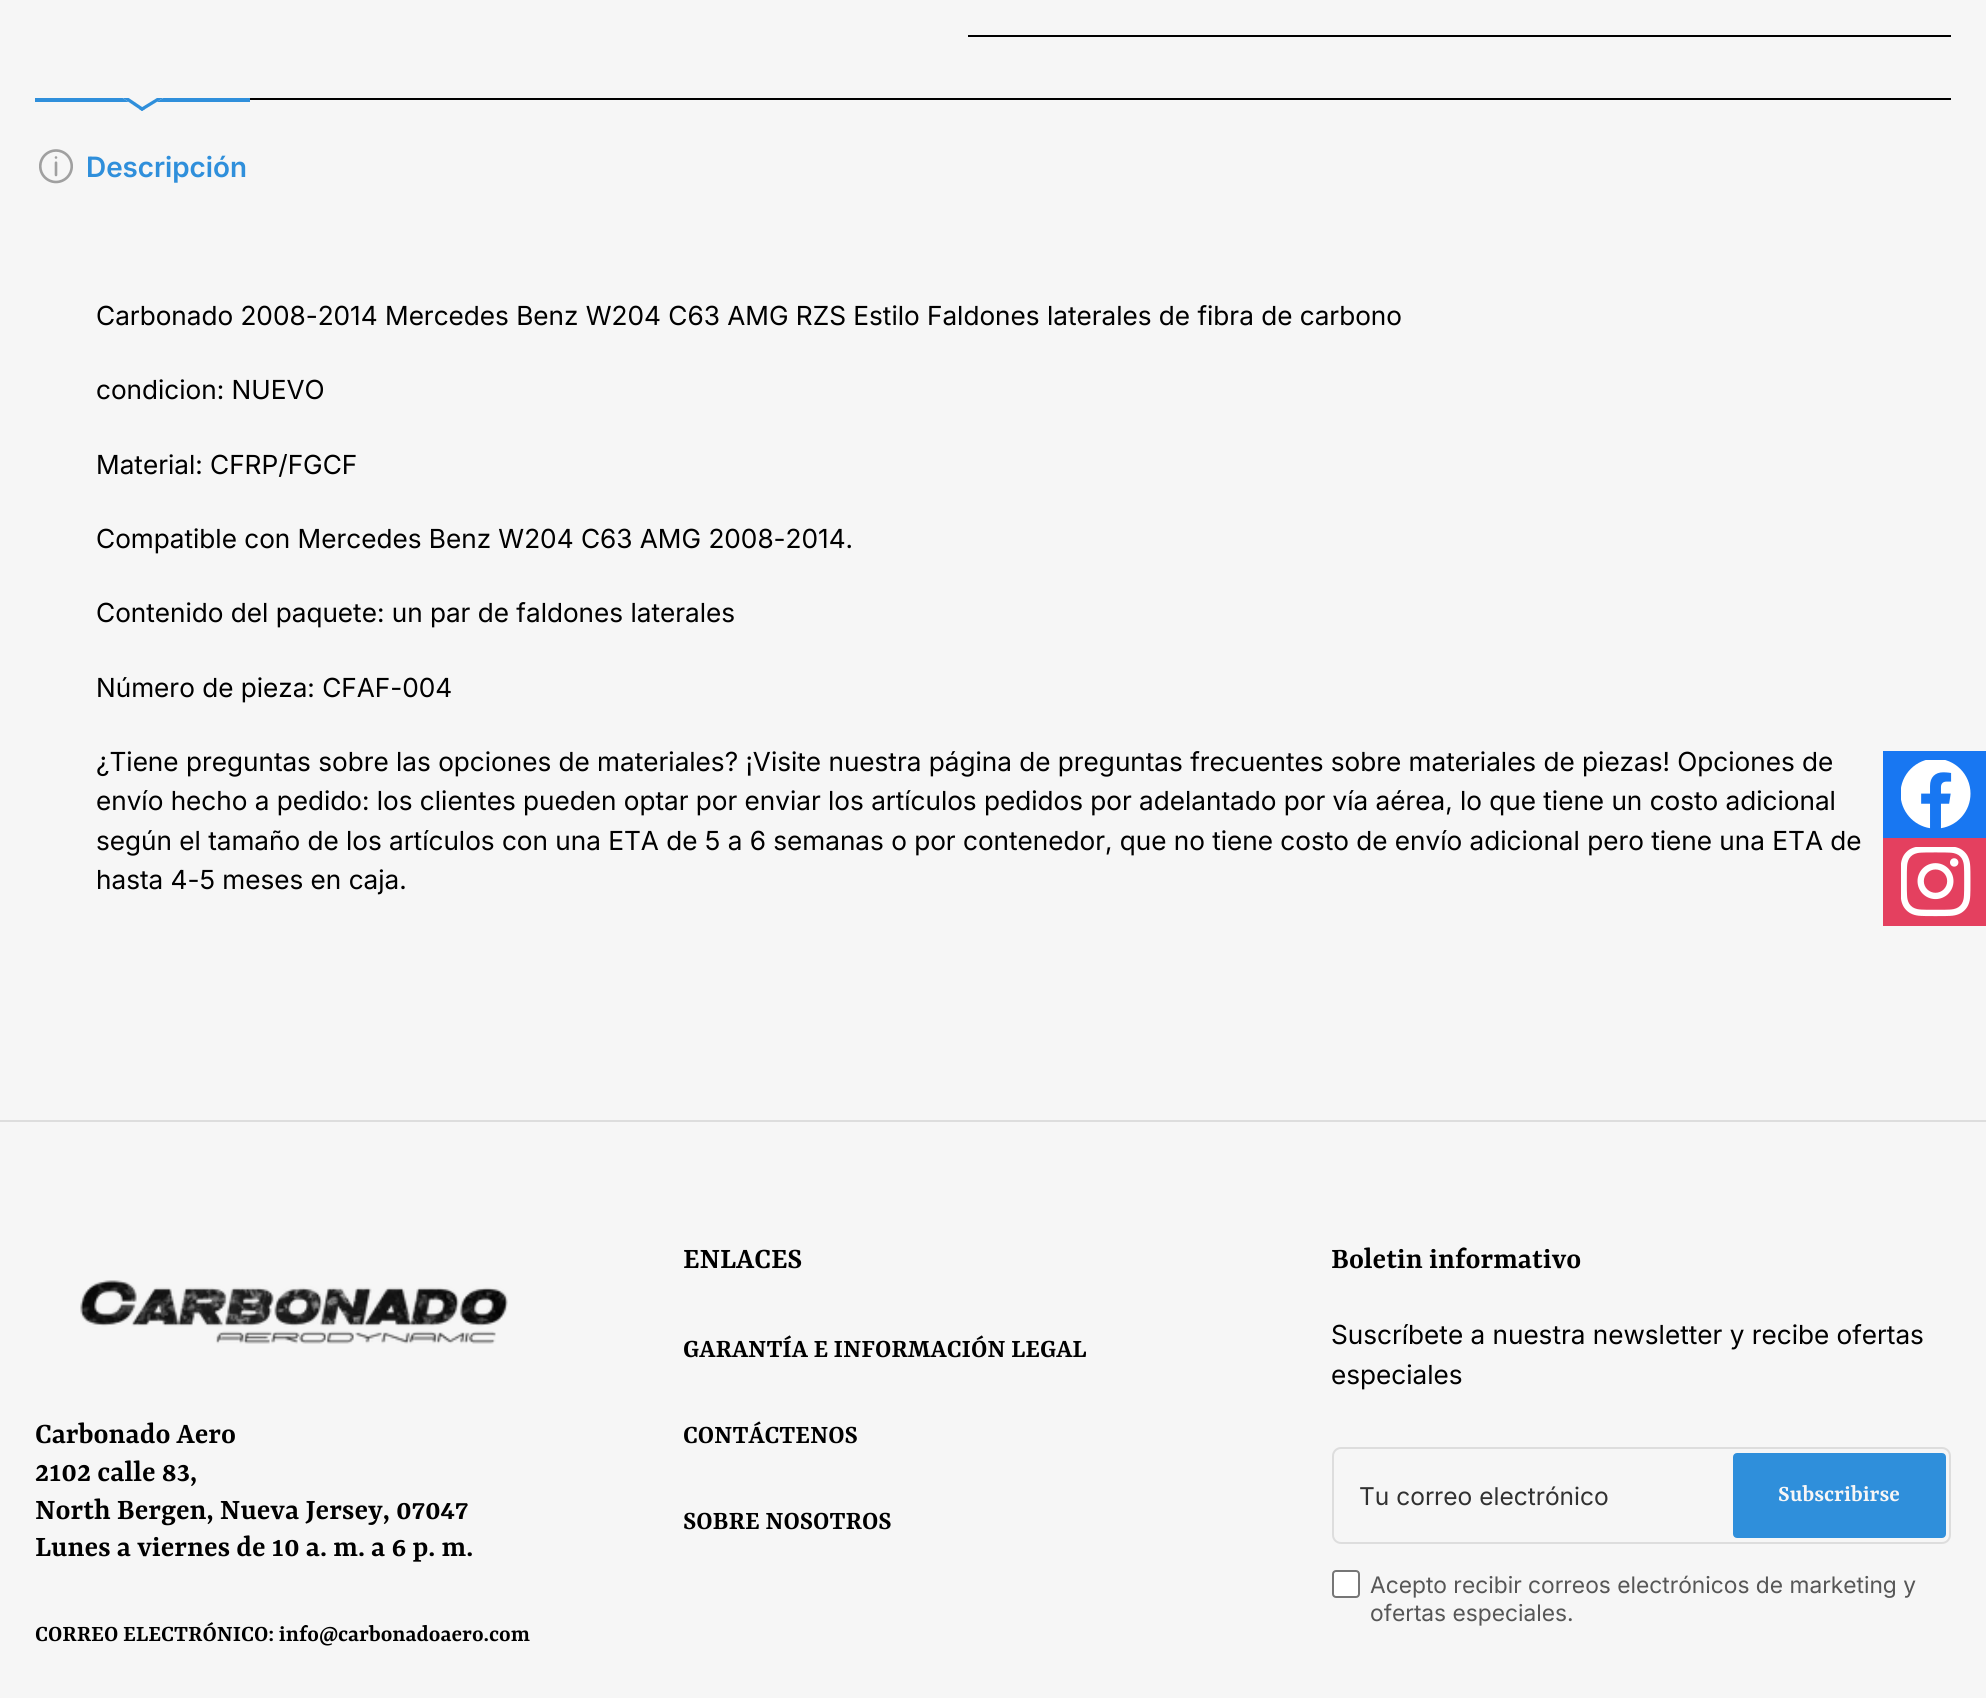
#include <cairo.h>
#include <math.h>
#include <stddef.h>

static cairo_t *c;
static void C(unsigned color){cairo_set_source_rgb(c, (color >> 16) / 255.0, (color >> 8 & 255) / 255.0, (color & 255) / 255.0);}
static void F(const char *family, double size, int italic, int bold){cairo_select_font_face(c, family, italic ? CAIRO_FONT_SLANT_ITALIC : CAIRO_FONT_SLANT_NORMAL,bold ? CAIRO_FONT_WEIGHT_BOLD : CAIRO_FONT_WEIGHT_NORMAL);cairo_set_font_size(c, size);}
static void T(double x, double y, const char *s){cairo_move_to(c, x, y);cairo_show_text(c, s);}
static void R(double x, double y, double w, double h){cairo_rectangle(c, x, y, w, h);cairo_fill(c);}
static void Q(double x, double y, double w, double h, double r){cairo_new_sub_path(c);cairo_arc(c, x + w - r, y + h - r, r, 0, M_PI / 2);cairo_arc(c, x + r, y + h - r, r, M_PI / 2, M_PI);cairo_arc(c, x + r, y + r, r, M_PI, 1.5 * M_PI);cairo_arc(c, x + w - r, y + r, r, 1.5 * M_PI, 2 * M_PI);cairo_close_path(c);}
static void I(const char *path, double x, double y, double w, double h){cairo_surface_t *image = cairo_image_surface_create_from_png(path);cairo_save(c);cairo_set_source_surface(c, image, x, y);cairo_rectangle(c, x, y, w, h);cairo_fill(c);cairo_restore(c);cairo_surface_destroy(image);}
int main(void) {
cairo_surface_t *surface = cairo_image_surface_create(CAIRO_FORMAT_RGB24, 1986, 1698);
c = cairo_create(surface);
cairo_font_options_t *options = cairo_font_options_create();
cairo_font_options_set_hint_metrics(options, CAIRO_HINT_METRICS_OFF);
cairo_font_options_set_hint_style(options, CAIRO_HINT_STYLE_NONE);
cairo_set_font_options(c, options);
cairo_set_miter_limit(c, 4);
C(0xf6f6f6);
cairo_paint(c);
C(0x000000);
R(968,35,983,2);
R(250,98,1701,2);
C(0x2f8fdb);
R(35,98,215,4);
cairo_save(c);
cairo_rectangle(c,35,98,215,95);
cairo_clip(c);
C(0xf6f6f6);
cairo_new_path(c);
cairo_move_to(c,147,52);
cairo_line_to(c,191,81);
cairo_line_to(c,142,111);
cairo_line_to(c,99,82);
cairo_close_path(c);
cairo_fill(c);
C(0x2f8fdb);
cairo_new_path(c);
cairo_move_to(c,188,79);
cairo_line_to(c,191,81);
cairo_line_to(c,142,111);
cairo_line_to(c,139,109);
cairo_close_path(c);
cairo_fill(c);
cairo_new_path(c);
cairo_move_to(c,102,80);
cairo_line_to(c,145,109);
cairo_line_to(c,142,111);
cairo_line_to(c,99,82);
cairo_close_path(c);
cairo_fill(c);
cairo_restore(c);
I("1.png",39,149,34,35);
F("Inter SemiBold",28,0,0);
T(86,177,"Descripción");
F("Inter",26.25,0,0);
C(0x000000);
T(96,325,"Carbonado 2008-2014 Mercedes Benz W204 C63 AMG RZS Estilo Faldones laterales de fibra de carbono");
T(96,399,"condicion: NUEVO");
T(96,474,"Material: CFRP/FGCF");
T(96,548,"Compatible con Mercedes Benz W204 C63 AMG 2008-2014.");
T(96,622,"Contenido del paquete: un par de faldones laterales");
T(96,697,"Número de pieza: CFAF-004");
T(96,771,"¿Tiene preguntas sobre las opciones de materiales? ¡Visite nuestra página de preguntas frecuentes sobre materiales de piezas! Opciones de");
T(96,810,"envío hecho a pedido: los clientes pueden optar por enviar los artículos pedidos por adelantado por vía aérea, lo que tiene un costo adicional");
T(96,850,"según el tamaño de los artículos con una ETA de 5 a 6 semanas o por contenedor, que no tiene costo de envío adicional pero tiene una ETA de");
T(96,889,"hasta 4-5 meses en caja.");
C(0x1877f2);
R(1883,751,103,87);
I("2.png",1901,760,70,69);
C(0xe4405f);
R(1883,838,103,88);
I("3.png",1901,847,70,70);
C(0xdddddd);
R(0,1120,1986,2);
I("4.png",80,1280,428,64);
F("Yrsa SemiBold",31.5,0,0);
C(0x000000);
T(35,1443,"Carbonado Aero");
T(35,1481,"2102 calle 83,");
T(35,1519,"North Bergen, Nueva Jersey, 07047");
T(35,1556,"Lunes a viernes de 10 a. m. a 6 p. m.");
F("Yrsa SemiBold",24.5,0,0);
T(35,1641,"CORREO ELECTRÓNICO: info@carbonadoaero.com");
F("Yrsa SemiBold",31.5,0,0);
T(683,1268,"ENLACES");
F("Yrsa SemiBold",28,0,0);
T(683,1357,"GARANTÍA E INFORMACIÓN LEGAL");
T(683,1443,"CONTÁCTENOS");
T(683,1529,"SOBRE NOSOTROS");
F("Yrsa SemiBold",31.5,0,0);
T(1331,1268,"Boletin informativo");
F("Inter",26.25,0,0);
T(1331,1344,"Suscríbete a nuestra newsletter y recibe ofertas");
T(1331,1384,"especiales");
Q(1333,1448,617,95,8);
C(0xdddddd);
cairo_stroke(c);
F("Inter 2",24.5,0,0);
C(0x313131);
T(1359,1505,"Tu correo electrónico");
C(0x2f8fdb);
Q(1734,1454,211,83,3);
cairo_fill_preserve(c);
cairo_stroke(c);
F("Yrsa SemiBold",24.5,0,0);
C(0xf6f6f6);
T(1778,1501,"Subscribirse");
C(0xffffff);
Q(1333,1571,26,26,3);
cairo_fill_preserve(c);
C(0x767676);
cairo_stroke(c);
F("Inter 2",22.75,0,0);
C(0x565656);
T(1370,1593,"Acepto recibir correos electrónicos de marketing y");
T(1370,1621,"ofertas especiales.");
cairo_surface_write_to_png(surface, "o.png");
cairo_font_options_destroy(options);
cairo_destroy(c);
cairo_surface_destroy(surface);
return 0;
}
